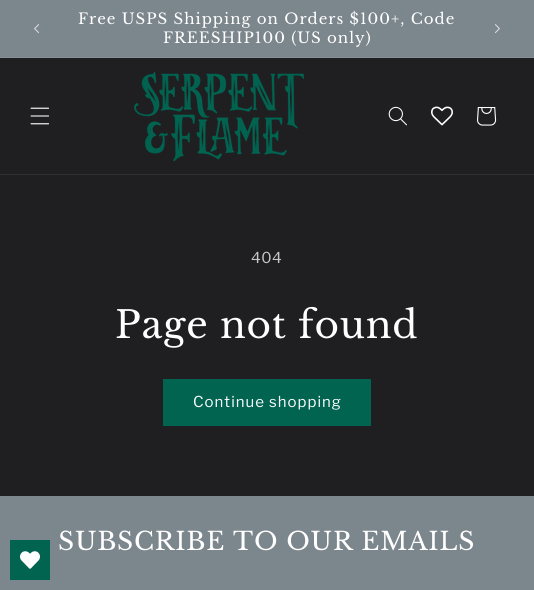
#include <cairo.h>
#include <math.h>
#include <stddef.h>

static cairo_t *c;
static void C(unsigned color){cairo_set_source_rgb(c, (color >> 16) / 255.0, (color >> 8 & 255) / 255.0, (color & 255) / 255.0);}
static void F(const char *family, double size, int italic, int bold){cairo_select_font_face(c, family, italic ? CAIRO_FONT_SLANT_ITALIC : CAIRO_FONT_SLANT_NORMAL,bold ? CAIRO_FONT_WEIGHT_BOLD : CAIRO_FONT_WEIGHT_NORMAL);cairo_set_font_size(c, size);}
static void L(double x, double y, const char *s, double letter, double word){cairo_move_to(c, x, y);while (*s) {char ch[5] = {0};int n = 0;do ch[n++] = *s++; while ((*s & 0xC0) == 0x80);cairo_show_text(c, ch);cairo_rel_move_to(c, letter + word * (*ch == ' '), 0);}}
static void R(double x, double y, double w, double h){cairo_rectangle(c, x, y, w, h);cairo_fill(c);}
static void I(const char *path, double x, double y, double w, double h){cairo_surface_t *image = cairo_image_surface_create_from_png(path);cairo_save(c);cairo_set_source_surface(c, image, x, y);cairo_rectangle(c, x, y, w, h);cairo_fill(c);cairo_restore(c);cairo_surface_destroy(image);}
int main(void) {
cairo_surface_t *surface = cairo_image_surface_create(CAIRO_FORMAT_RGB24, 534, 590);
c = cairo_create(surface);
cairo_font_options_t *options = cairo_font_options_create();
cairo_font_options_set_hint_metrics(options, CAIRO_HINT_METRICS_OFF);
cairo_font_options_set_hint_style(options, CAIRO_HINT_STYLE_NONE);
cairo_set_font_options(c, options);
cairo_set_miter_limit(c, 4);
C(0x1f1f21);
cairo_paint(c);
C(0x7c868d);
R(0,0,534,57);
C(0x869096);
R(0,57,534,1);
I("1.png",34,24,5,9);
F("Libre Baskerville",15,0,0);
C(0xffffff);
L(78,24,"Free USPS Shipping on Orders $100+, Code",1,0);
L(163,43,"FREESHIP100 (US only)",1,0);
I("2.png",495,24,5,9);
C(0x313133);
R(0,174,534,1);
I("3.png",30,107,20,18);
I("4.png",134,72,170,89);
I("5.png",388,106,19,20);
I("6.png",431,106,22,20);
I("7.png",477,107,20,19);
F("Libre Franklin",15,0,0);
C(0xc7c7c8);
L(251,263,"404",.5,0);
F("Libre Baskerville",37.5,0,0);
C(0xffffff);
L(115,338,"Page not found",.75,0);
C(0x006450);
R(163,379,208,47);
F("Libre Franklin",15,0,0);
C(0xffffff);
L(193,407,"Continue shopping",1,0);
C(0x7c868d);
R(0,496,534,94);
C(0x006450);
R(10,540,40,40);
I("8.png",20,551,20,18);
F("Libre Baskerville",25,0,0);
C(0xffffff);
L(58,550,"SUBSCRIBE TO OUR EMAILS",.75,0);
cairo_surface_write_to_png(surface, "o.png");
cairo_font_options_destroy(options);
cairo_destroy(c);
cairo_surface_destroy(surface);
return 0;
}
